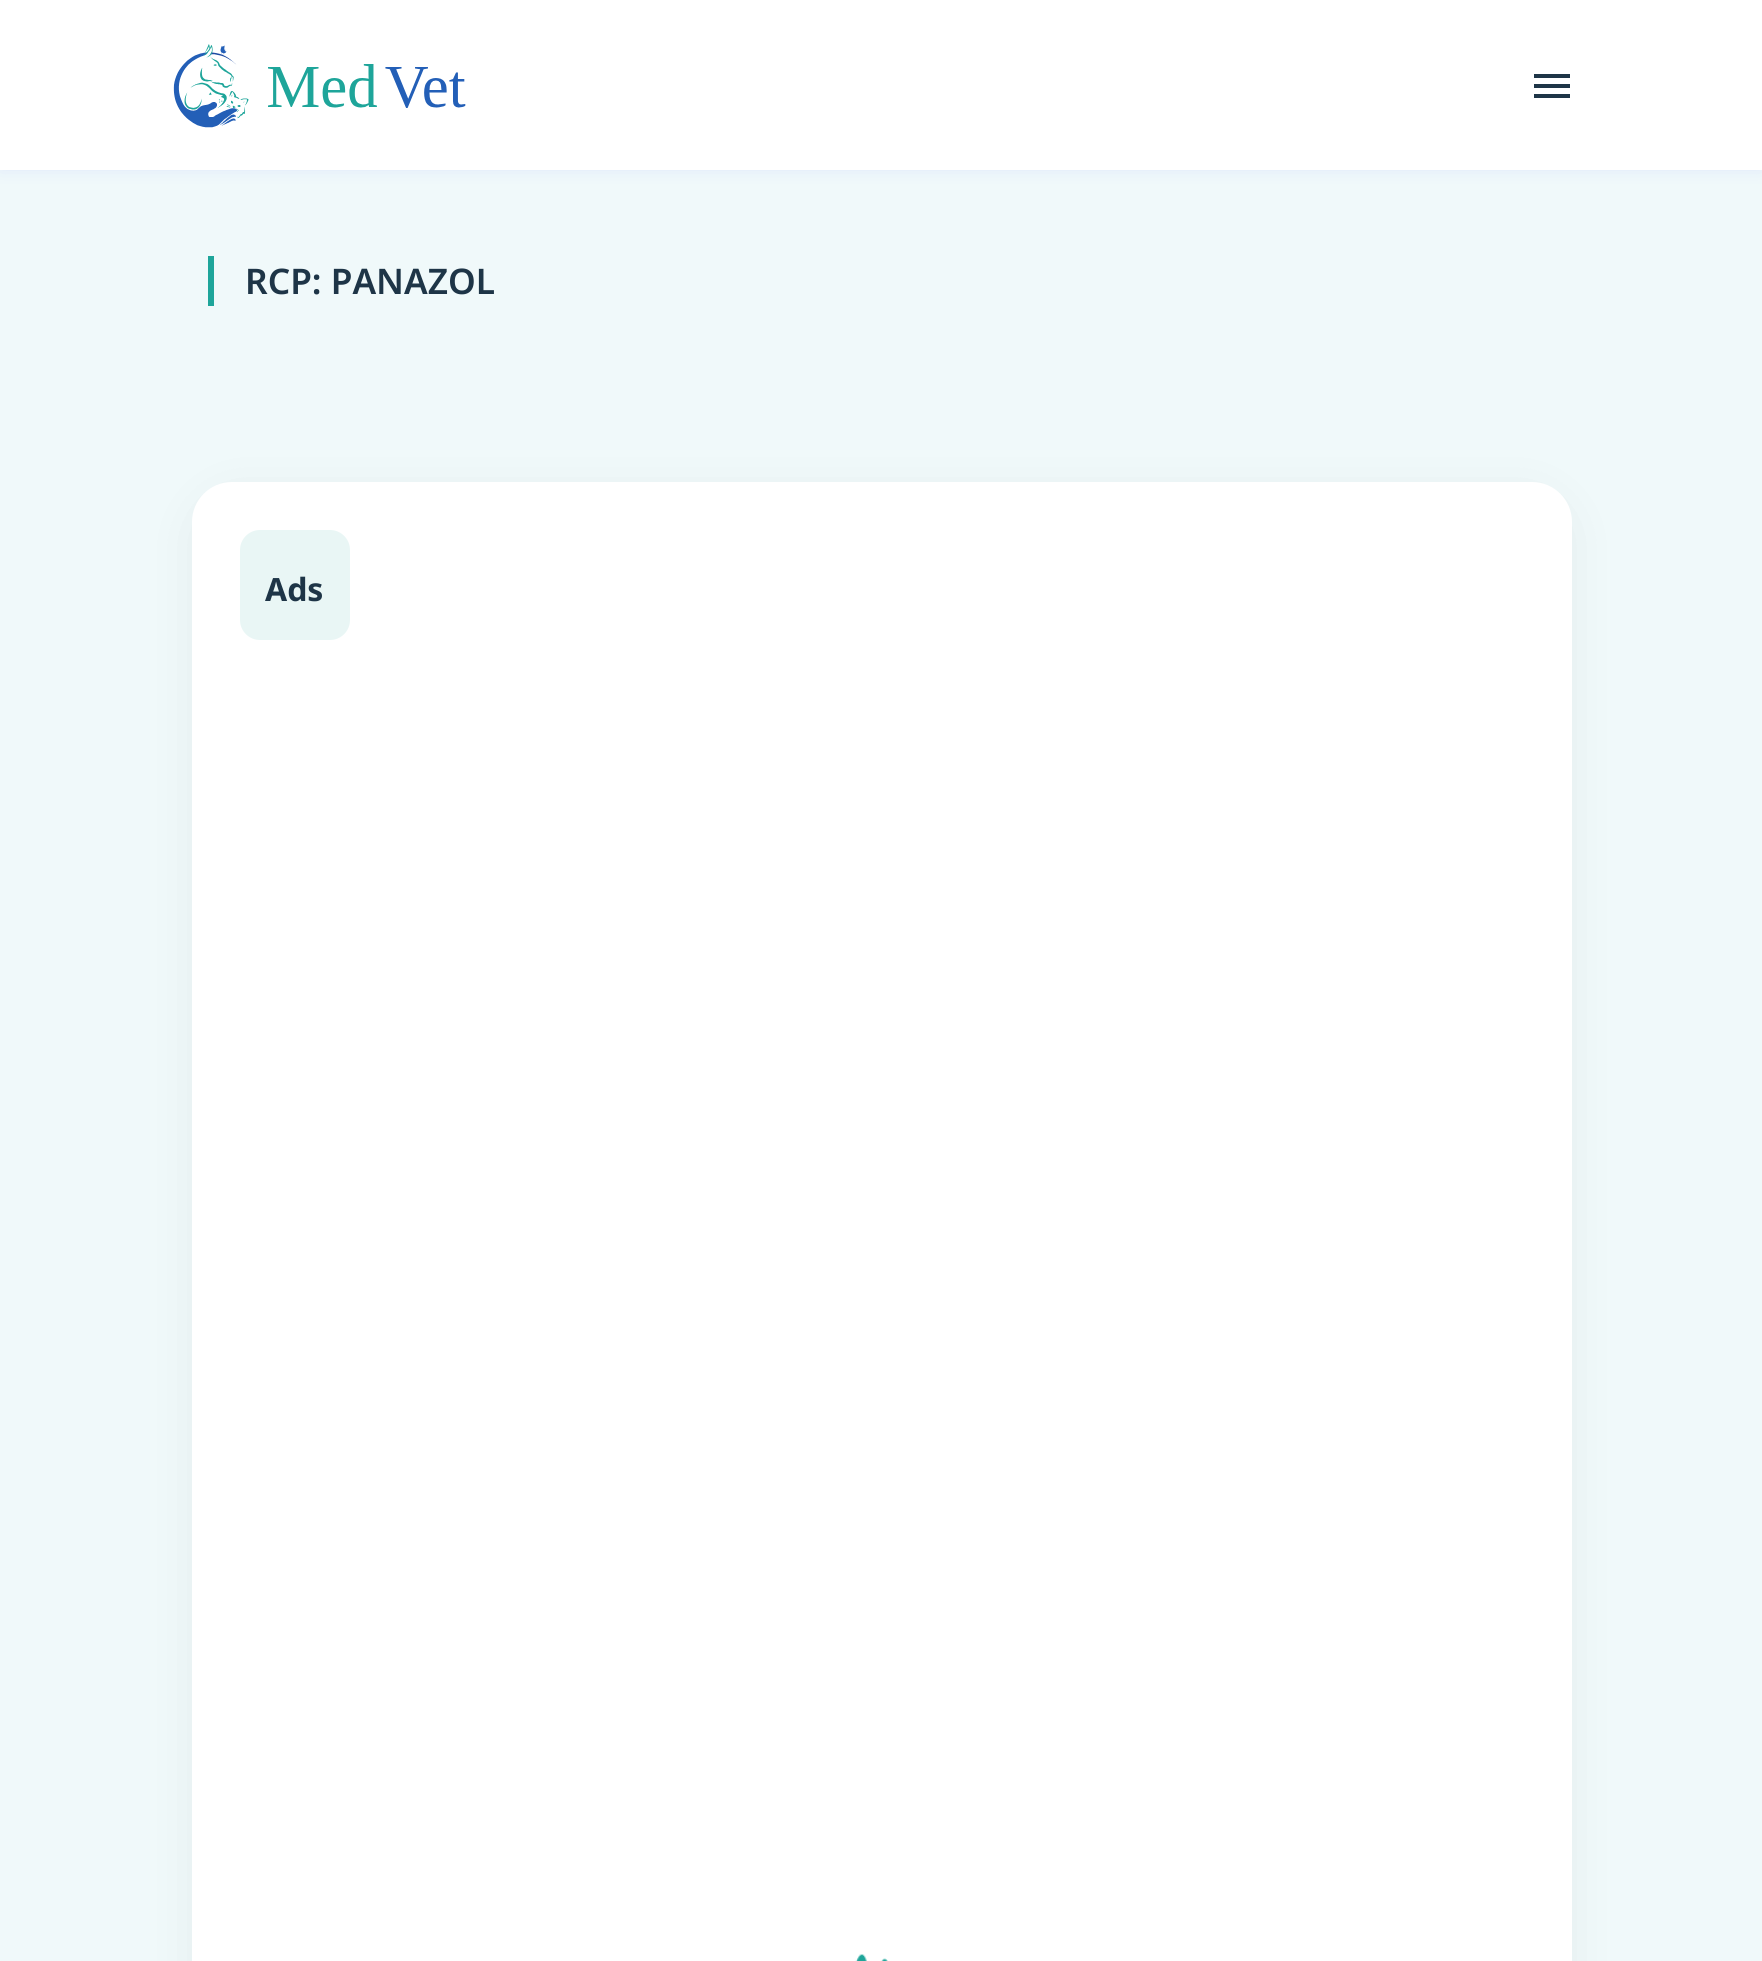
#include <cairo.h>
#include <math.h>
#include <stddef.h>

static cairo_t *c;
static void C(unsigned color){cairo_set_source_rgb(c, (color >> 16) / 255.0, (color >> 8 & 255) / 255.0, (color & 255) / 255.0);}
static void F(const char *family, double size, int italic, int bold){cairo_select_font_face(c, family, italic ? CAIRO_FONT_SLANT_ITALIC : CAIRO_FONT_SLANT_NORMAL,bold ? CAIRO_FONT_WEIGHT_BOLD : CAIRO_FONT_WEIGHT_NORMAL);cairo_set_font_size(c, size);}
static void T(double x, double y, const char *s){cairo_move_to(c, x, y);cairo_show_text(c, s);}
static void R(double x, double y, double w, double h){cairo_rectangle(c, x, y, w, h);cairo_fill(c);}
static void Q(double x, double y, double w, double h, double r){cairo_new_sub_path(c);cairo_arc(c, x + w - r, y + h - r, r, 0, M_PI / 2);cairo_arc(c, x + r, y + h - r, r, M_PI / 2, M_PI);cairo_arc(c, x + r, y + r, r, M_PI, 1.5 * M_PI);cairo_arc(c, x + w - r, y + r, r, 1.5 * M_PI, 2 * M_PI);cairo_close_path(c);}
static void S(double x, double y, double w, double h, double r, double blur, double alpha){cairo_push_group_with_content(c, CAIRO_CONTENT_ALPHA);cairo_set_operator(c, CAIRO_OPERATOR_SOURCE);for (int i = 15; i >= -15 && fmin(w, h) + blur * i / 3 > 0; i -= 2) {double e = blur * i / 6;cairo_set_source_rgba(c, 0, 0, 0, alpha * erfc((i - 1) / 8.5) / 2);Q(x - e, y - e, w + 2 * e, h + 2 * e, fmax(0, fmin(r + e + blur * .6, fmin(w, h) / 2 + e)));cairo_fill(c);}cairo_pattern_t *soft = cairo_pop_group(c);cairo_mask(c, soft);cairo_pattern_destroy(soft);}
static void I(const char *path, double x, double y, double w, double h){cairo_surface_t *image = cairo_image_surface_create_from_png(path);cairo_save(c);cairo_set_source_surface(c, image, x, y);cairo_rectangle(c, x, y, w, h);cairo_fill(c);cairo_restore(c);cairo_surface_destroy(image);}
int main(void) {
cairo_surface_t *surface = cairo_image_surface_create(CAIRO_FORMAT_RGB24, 1762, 1961);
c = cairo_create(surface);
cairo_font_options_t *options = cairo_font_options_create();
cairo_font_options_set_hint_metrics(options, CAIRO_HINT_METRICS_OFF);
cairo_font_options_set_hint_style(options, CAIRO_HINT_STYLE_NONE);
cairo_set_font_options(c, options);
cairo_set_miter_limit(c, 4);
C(0xf0f9fa);
cairo_paint(c);
C(0x4353ff);
S(0,-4,1762,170,0,10,.14);
C(0xffffff);
R(0,0,1762,170);
I("1.png",173,44,293,84);
C(0x1e3547);
cairo_new_path(c);
cairo_move_to(c,1534,74);
cairo_line_to(c,1570,74);
cairo_line_to(c,1570,78);
cairo_line_to(c,1534,78);
cairo_close_path(c);
cairo_move_to(c,1534,84);
cairo_line_to(c,1570,84);
cairo_line_to(c,1570,88);
cairo_line_to(c,1534,88);
cairo_close_path(c);
cairo_move_to(c,1534,94);
cairo_line_to(c,1570,94);
cairo_line_to(c,1570,98);
cairo_line_to(c,1534,98);
cairo_close_path(c);
cairo_fill(c);
C(0x1ea59a);
R(208,256,6,50);
F("Noto Sans SemiBold",35.25,0,0);
C(0x1e3547);
T(245,294,"RCP: PANAZOL");
C(0x000000);
S(212,512,1340,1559,20,30,.1);
C(0xffffff);
Q(192,482,1380,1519,40);
cairo_fill(c);
C(0xe9f6f5);
Q(240,530,110,110,20);
cairo_fill(c);
F("Noto Sans",32,0,1);
C(0x1e3547);
T(265,601,"Ads");
I("2.png",855,1954,33,7);
cairo_surface_write_to_png(surface, "o.png");
cairo_font_options_destroy(options);
cairo_destroy(c);
cairo_surface_destroy(surface);
return 0;
}
